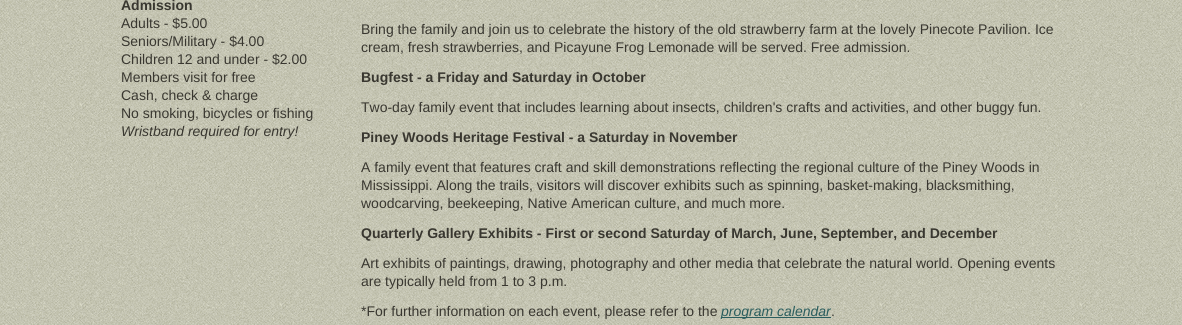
#include <cairo.h>
#include <math.h>
#include <stddef.h>

static cairo_t *c;
static void C(unsigned color){cairo_set_source_rgb(c, (color >> 16) / 255.0, (color >> 8 & 255) / 255.0, (color & 255) / 255.0);}
static void F(const char *family, double size, int italic, int bold){cairo_select_font_face(c, family, italic ? CAIRO_FONT_SLANT_ITALIC : CAIRO_FONT_SLANT_NORMAL,bold ? CAIRO_FONT_WEIGHT_BOLD : CAIRO_FONT_WEIGHT_NORMAL);cairo_set_font_size(c, size);}
static void T(double x, double y, const char *s){cairo_move_to(c, x, y);cairo_show_text(c, s);}
static void R(double x, double y, double w, double h){cairo_rectangle(c, x, y, w, h);cairo_fill(c);}
static void I(const char *path, double x, double y, double w, double h){cairo_surface_t *image = cairo_image_surface_create_from_png(path);cairo_save(c);cairo_set_source_surface(c, image, x, y);cairo_rectangle(c, x, y, w, h);cairo_fill(c);cairo_restore(c);cairo_surface_destroy(image);}
int main(void) {
cairo_surface_t *surface = cairo_image_surface_create(CAIRO_FORMAT_RGB24, 1182, 325);
c = cairo_create(surface);
cairo_font_options_t *options = cairo_font_options_create();
cairo_font_options_set_hint_metrics(options, CAIRO_HINT_METRICS_OFF);
cairo_font_options_set_hint_style(options, CAIRO_HINT_STYLE_NONE);
cairo_set_font_options(c, options);
cairo_set_miter_limit(c, 4);
C(0xffffff);
cairo_paint(c);
I("1.png",0,0,1182,325);
F("Liberation Sans",14,0,1);
C(0x393730);
T(121,10,"Admission");
F("Liberation Sans",14,0,0);
T(121,28,"Adults - $5.00");
T(121,46,"Seniors/Military - $4.00");
T(121,64,"Children 12 and under - $2.00");
T(121,82,"Members visit for free");
T(121,100,"Cash, check & charge");
T(121,118,"No smoking, bicycles or fishing");
F("Liberation Sans",14,1,0);
T(121,136,"Wristband required for entry!");
F("Liberation Sans",14,0,0);
T(361,34,"Bring the family and join us to celebrate the history of the old strawberry farm at the lovely Pinecote Pavilion. Ice");
T(361,52,"cream, fresh strawberries, and Picayune Frog Lemonade will be served. Free admission.");
F("Liberation Sans",14,0,1);
T(361,82,"Bugfest - a Friday and Saturday in October");
F("Liberation Sans",14,0,0);
T(361,112,"Two-day family event that includes learning about insects, children's crafts and activities, and other buggy fun.");
F("Liberation Sans",14,0,1);
T(361,142,"Piney Woods Heritage Festival - a Saturday in November");
F("Liberation Sans",14,0,0);
T(361,172,"A family event that features craft and skill demonstrations reflecting the regional culture of the Piney Woods in");
T(361,190,"Mississippi. Along the trails, visitors will discover exhibits such as spinning, basket-making, blacksmithing,");
T(361,208,"woodcarving, beekeeping, Native American culture, and much more.");
F("Liberation Sans",14,0,1);
T(361,238,"Quarterly Gallery Exhibits - First or second Saturday of March, June, September, and December");
F("Liberation Sans",14,0,0);
T(361,268,"Art exhibits of paintings, drawing, photography and other media that celebrate the natural world. Opening events");
T(361,286,"are typically held from 1 to 3 p.m.");
T(361,316,"*For further information on each event, please refer to the");
C(0x2b5e5e);
R(721,317,110,1);
F("Liberation Sans",14,1,0);
T(721,316,"program calendar");
F("Liberation Sans",14,0,0);
C(0x393730);
T(831,316,".");
cairo_surface_write_to_png(surface, "o.png");
cairo_font_options_destroy(options);
cairo_destroy(c);
cairo_surface_destroy(surface);
return 0;
}
